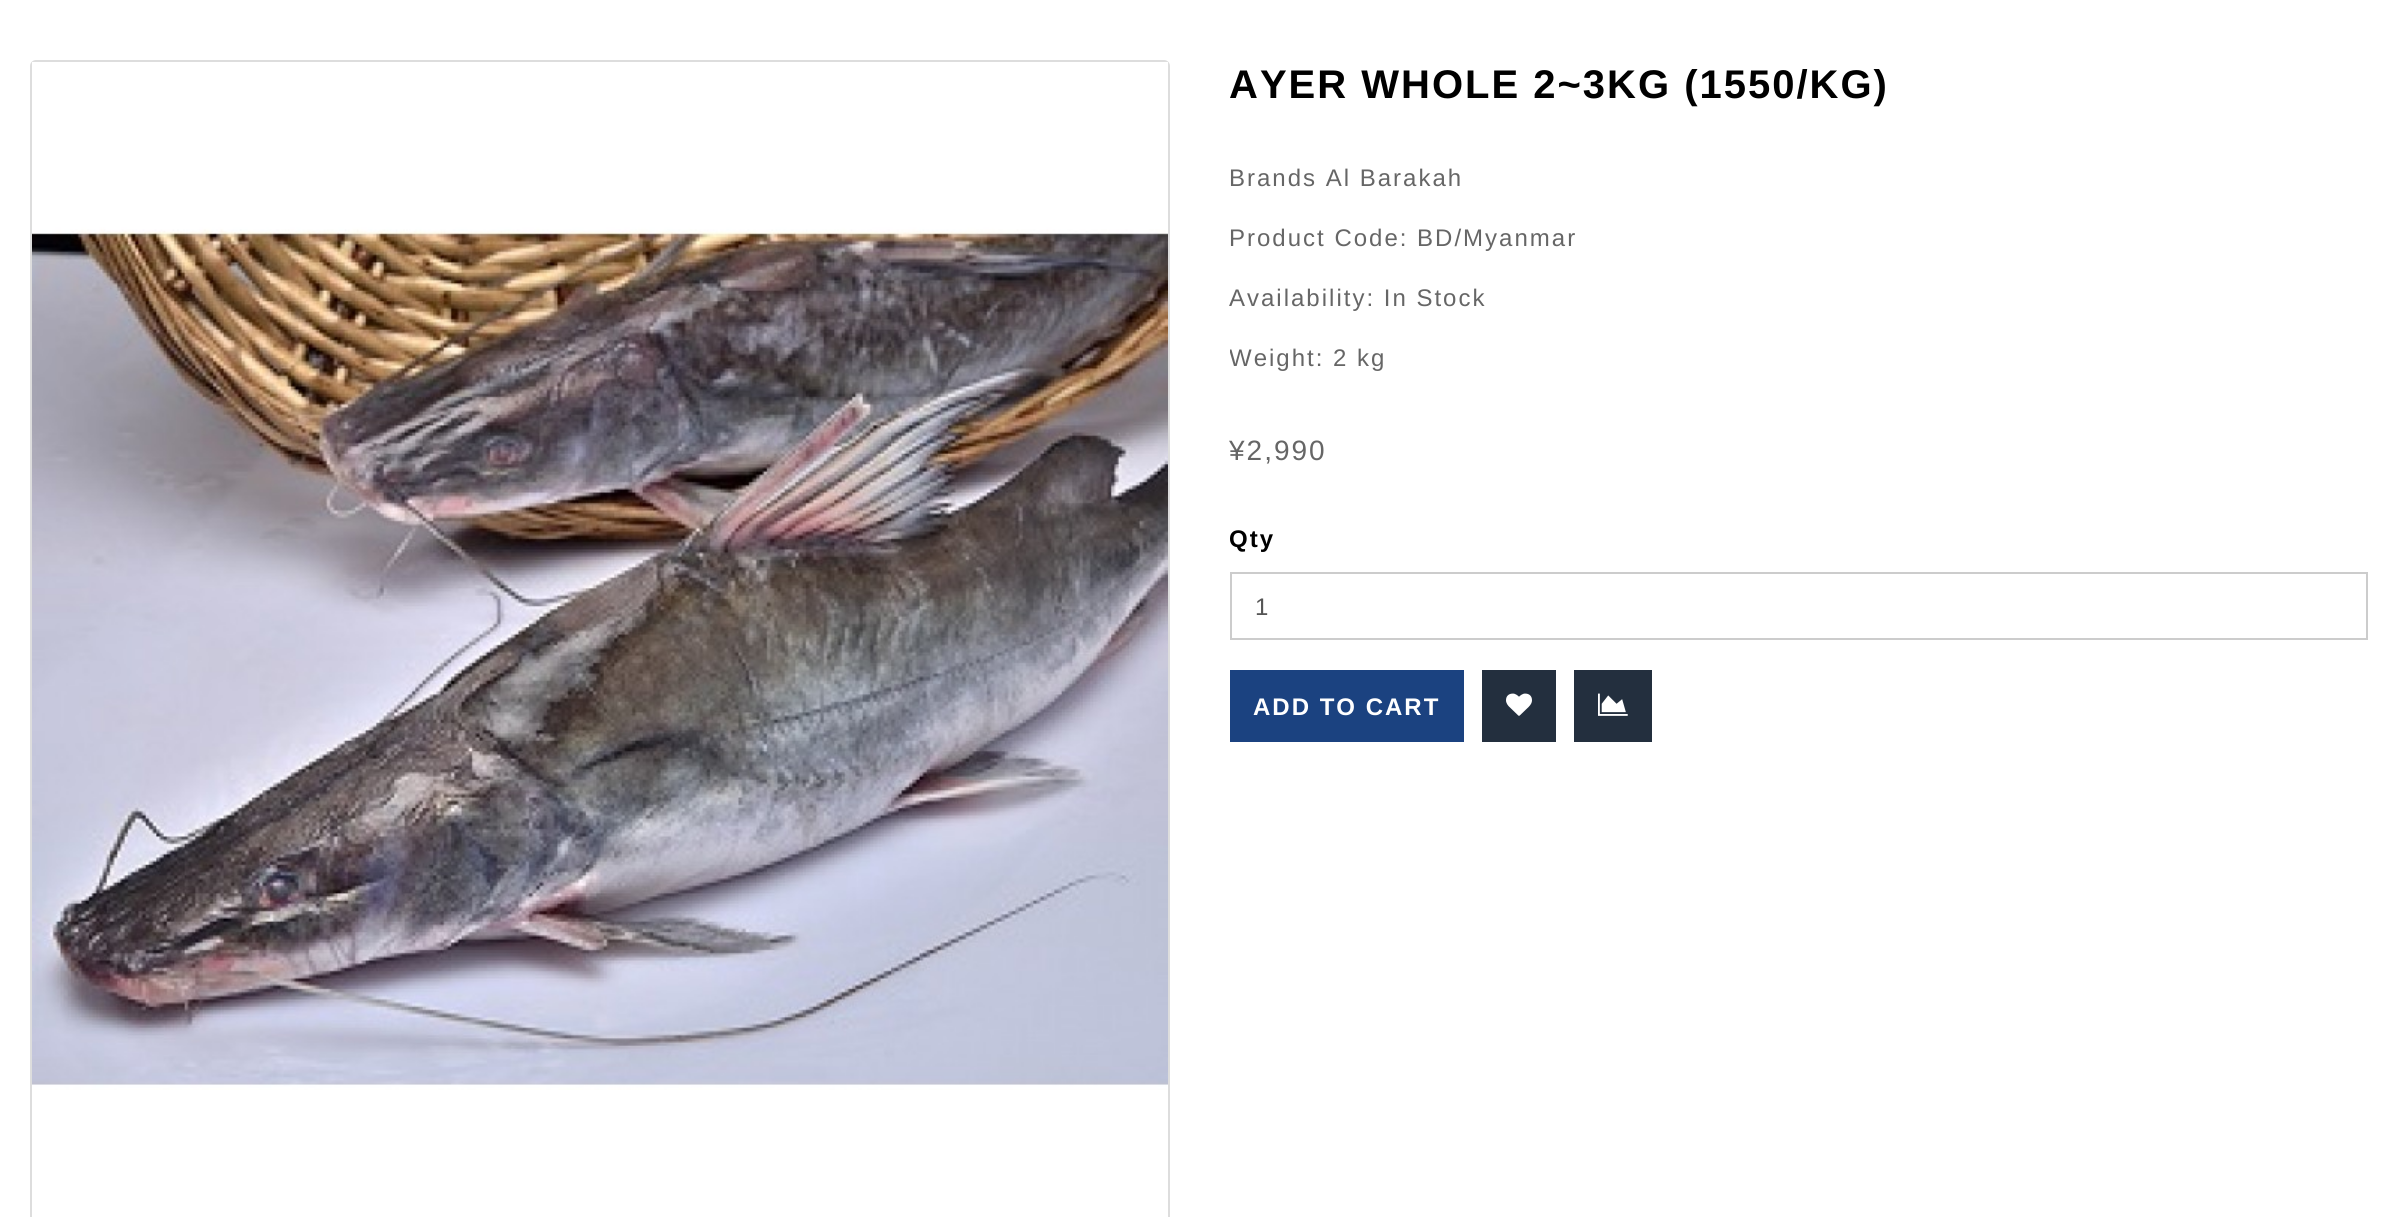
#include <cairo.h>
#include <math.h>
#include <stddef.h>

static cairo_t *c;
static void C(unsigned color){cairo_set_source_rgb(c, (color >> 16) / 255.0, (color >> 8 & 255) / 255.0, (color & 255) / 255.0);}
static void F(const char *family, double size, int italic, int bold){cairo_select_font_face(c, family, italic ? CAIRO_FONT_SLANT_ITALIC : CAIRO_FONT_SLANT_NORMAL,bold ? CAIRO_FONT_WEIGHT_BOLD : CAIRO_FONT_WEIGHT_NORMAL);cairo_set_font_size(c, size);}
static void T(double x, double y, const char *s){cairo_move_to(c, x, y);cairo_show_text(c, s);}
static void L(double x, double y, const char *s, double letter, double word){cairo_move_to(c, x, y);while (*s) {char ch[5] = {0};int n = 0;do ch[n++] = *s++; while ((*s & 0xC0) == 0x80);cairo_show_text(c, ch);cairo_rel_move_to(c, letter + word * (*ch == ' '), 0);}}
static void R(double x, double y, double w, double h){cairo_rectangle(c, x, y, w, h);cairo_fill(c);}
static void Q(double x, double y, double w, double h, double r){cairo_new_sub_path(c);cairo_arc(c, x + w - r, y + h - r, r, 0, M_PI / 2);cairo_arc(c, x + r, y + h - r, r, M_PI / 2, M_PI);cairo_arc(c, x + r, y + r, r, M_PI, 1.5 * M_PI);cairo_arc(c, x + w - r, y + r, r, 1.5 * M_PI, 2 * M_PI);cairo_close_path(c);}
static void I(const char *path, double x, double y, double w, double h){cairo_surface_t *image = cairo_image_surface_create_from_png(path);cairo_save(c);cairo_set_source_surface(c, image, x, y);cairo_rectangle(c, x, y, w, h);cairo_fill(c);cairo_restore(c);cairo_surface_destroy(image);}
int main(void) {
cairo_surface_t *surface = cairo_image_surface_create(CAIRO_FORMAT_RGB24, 2397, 1217);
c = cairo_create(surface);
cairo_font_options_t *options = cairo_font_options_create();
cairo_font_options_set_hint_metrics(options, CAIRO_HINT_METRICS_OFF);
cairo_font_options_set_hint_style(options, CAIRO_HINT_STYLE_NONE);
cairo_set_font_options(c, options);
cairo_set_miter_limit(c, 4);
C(0xffffff);
cairo_paint(c);
Q(31,61,1138,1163,5);
C(0xdddddd);
cairo_stroke(c);
I("1.png",32,62,1136,1028);
F("Liberation Sans",40,0,1);
C(0x000000);
L(1229,98,"AYER WHOLE 2~3KG (1550/KG)",2,0);
F("Liberation Sans",24,0,0);
C(0x666666);
L(1229,186,"Brands Al Barakah",2,0);
L(1229,246,"Product Code: BD/Myanmar",2,0);
L(1229,306,"Availability: In Stock",2,0);
cairo_save(c);
cairo_rectangle(c,1230,148,1138,240);
cairo_clip(c);
L(1229,366,"Weight:",2,0);
cairo_restore(c);
L(1333,366,"2 kg",2,0);
F("Liberation Sans",28,0,0);
L(1229,460,"¥2,990",2,0);
F("Liberation Sans",24,0,1);
C(0x000000);
L(1229,547,"Qty",2,0);
cairo_rectangle(c,1231,573,1136,66);
C(0xcccccc);
cairo_stroke(c);
F("Liberation Sans",24,0,0);
C(0x555555);
T(1255,615,"1");
C(0x1b4280);
R(1230,670,234,72);
F("Liberation Sans",24,0,1);
C(0xffffff);
L(1253,715,"ADD TO CART",2,0);
C(0x232f3e);
R(1482,670,74,72);
I("2.png",1506,693,26,23);
R(1574,670,78,72);
I("3.png",1598,693,30,23);
cairo_surface_write_to_png(surface, "o.png");
cairo_font_options_destroy(options);
cairo_destroy(c);
cairo_surface_destroy(surface);
return 0;
}
